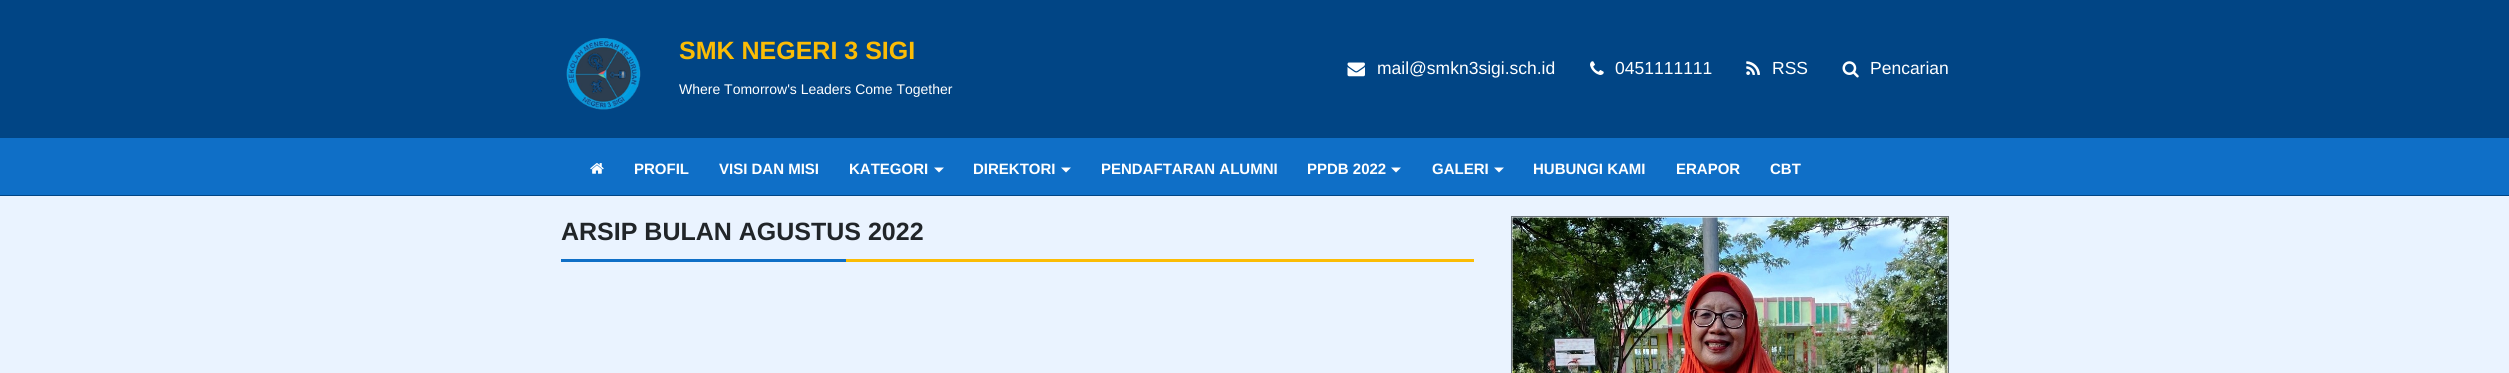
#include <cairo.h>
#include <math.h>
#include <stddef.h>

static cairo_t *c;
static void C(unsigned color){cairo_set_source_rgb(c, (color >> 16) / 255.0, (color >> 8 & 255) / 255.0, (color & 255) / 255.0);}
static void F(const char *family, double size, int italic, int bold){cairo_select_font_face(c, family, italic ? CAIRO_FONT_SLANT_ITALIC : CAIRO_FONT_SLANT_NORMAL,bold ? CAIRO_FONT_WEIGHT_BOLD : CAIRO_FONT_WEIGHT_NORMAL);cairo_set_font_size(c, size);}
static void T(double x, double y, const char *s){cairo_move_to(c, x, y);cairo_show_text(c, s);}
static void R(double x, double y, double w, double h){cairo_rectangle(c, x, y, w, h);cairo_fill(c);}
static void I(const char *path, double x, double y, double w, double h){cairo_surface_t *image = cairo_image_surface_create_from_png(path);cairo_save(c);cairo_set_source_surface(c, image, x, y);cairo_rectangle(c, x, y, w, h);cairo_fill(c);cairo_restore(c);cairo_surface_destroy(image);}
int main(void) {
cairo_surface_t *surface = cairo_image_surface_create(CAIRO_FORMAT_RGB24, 2509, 373);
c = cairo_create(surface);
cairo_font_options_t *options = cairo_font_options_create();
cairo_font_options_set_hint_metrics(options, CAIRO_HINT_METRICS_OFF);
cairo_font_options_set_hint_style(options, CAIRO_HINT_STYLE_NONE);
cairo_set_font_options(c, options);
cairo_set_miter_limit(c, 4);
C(0xeaf3ff);
cairo_paint(c);
C(0x014585);
R(0,0,2509,138);
I("1.png",566,38,75,72);
F("Liberation Sans",25,0,1);
C(0xfbbc05);
T(679,59,"SMK NEGERI 3 SIGI");
F("Liberation Sans",14,0,0);
C(0xffffff);
T(679,94,"Where Tomorrow's Leaders Come Together");
I("2.png",1347,62,18,15);
F("Liberation Sans",17.5,0,0);
T(1377,74,"mail@smkn3sigi.sch.id");
I("3.png",1590,61,14,14);
T(1615,74,"0451111111");
I("4.png",1746,61,14,14);
T(1772,74,"RSS");
I("5.png",1842,61,17,17);
T(1870,74,"Pencarian");
C(0x0f6fc7);
R(0,138,2509,57);
C(0x014585);
R(0,195,2509,1);
I("6.png",590,163,14,11);
F("Liberation Sans",15,0,1);
C(0xffffff);
T(634,174,"PROFIL");
T(719,174,"VISI DAN MISI");
T(849,174,"KATEGORI");
cairo_new_path(c);
cairo_move_to(c,934,167.5);
cairo_line_to(c,944,167.5);
cairo_line_to(c,939,172.5);
cairo_close_path(c);
cairo_fill(c);
T(973,174,"DIREKTORI");
cairo_new_path(c);
cairo_move_to(c,1061,167.5);
cairo_line_to(c,1071,167.5);
cairo_line_to(c,1066,172.5);
cairo_close_path(c);
cairo_fill(c);
T(1101,174,"PENDAFTARAN ALUMNI");
T(1307,174,"PPDB 2022");
cairo_new_path(c);
cairo_move_to(c,1391,167.5);
cairo_line_to(c,1401,167.5);
cairo_line_to(c,1396,172.5);
cairo_close_path(c);
cairo_fill(c);
T(1432,174,"GALERI");
cairo_new_path(c);
cairo_move_to(c,1494,167.5);
cairo_line_to(c,1504,167.5);
cairo_line_to(c,1499,172.5);
cairo_close_path(c);
cairo_fill(c);
T(1533,174,"HUBUNGI KAMI");
T(1676,174,"ERAPOR");
T(1770,174,"CBT");
C(0xfbbc05);
R(846,259,628,3);
F("Liberation Sans",25,0,1);
C(0x212529);
T(561,240,"ARSIP BULAN AGUSTUS 2022");
C(0x0f6fc7);
R(561,259,285,3);
C(0xffffff);
cairo_rectangle(c,1511.5,216.5,437,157);
cairo_fill_preserve(c);
C(0x6c757d);
cairo_set_line_width(c,1);
cairo_stroke(c);
I("7.png",1512,217,436,156);
cairo_surface_write_to_png(surface, "o.png");
cairo_font_options_destroy(options);
cairo_destroy(c);
cairo_surface_destroy(surface);
return 0;
}
